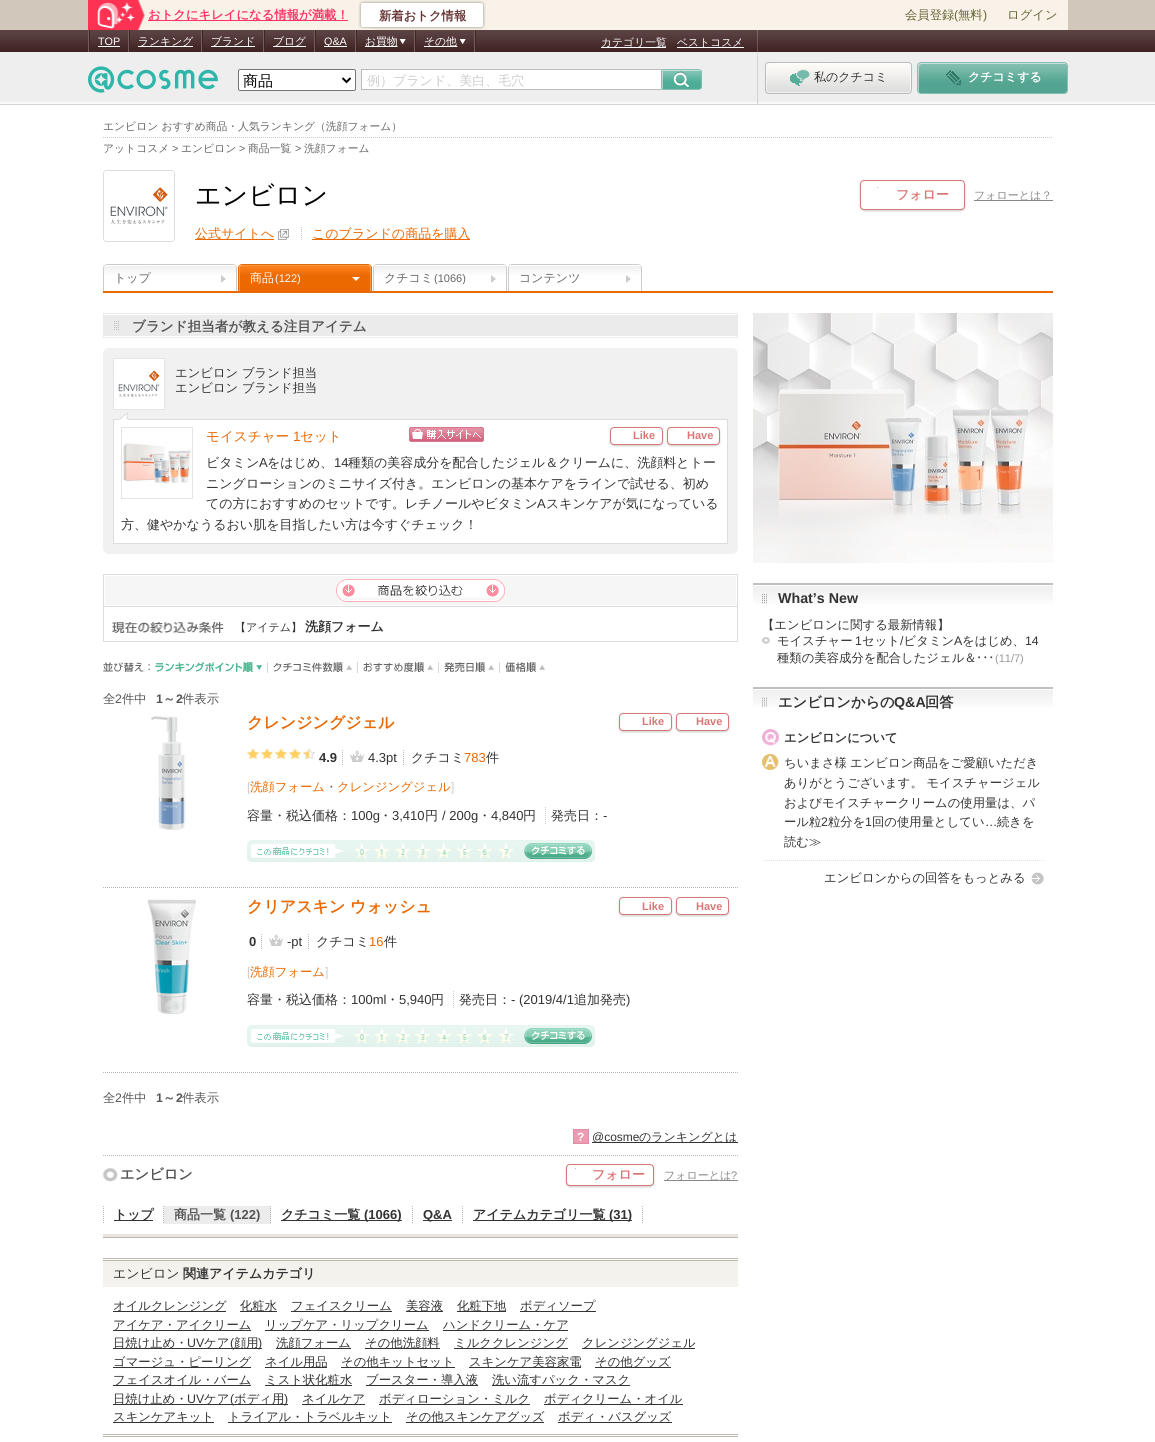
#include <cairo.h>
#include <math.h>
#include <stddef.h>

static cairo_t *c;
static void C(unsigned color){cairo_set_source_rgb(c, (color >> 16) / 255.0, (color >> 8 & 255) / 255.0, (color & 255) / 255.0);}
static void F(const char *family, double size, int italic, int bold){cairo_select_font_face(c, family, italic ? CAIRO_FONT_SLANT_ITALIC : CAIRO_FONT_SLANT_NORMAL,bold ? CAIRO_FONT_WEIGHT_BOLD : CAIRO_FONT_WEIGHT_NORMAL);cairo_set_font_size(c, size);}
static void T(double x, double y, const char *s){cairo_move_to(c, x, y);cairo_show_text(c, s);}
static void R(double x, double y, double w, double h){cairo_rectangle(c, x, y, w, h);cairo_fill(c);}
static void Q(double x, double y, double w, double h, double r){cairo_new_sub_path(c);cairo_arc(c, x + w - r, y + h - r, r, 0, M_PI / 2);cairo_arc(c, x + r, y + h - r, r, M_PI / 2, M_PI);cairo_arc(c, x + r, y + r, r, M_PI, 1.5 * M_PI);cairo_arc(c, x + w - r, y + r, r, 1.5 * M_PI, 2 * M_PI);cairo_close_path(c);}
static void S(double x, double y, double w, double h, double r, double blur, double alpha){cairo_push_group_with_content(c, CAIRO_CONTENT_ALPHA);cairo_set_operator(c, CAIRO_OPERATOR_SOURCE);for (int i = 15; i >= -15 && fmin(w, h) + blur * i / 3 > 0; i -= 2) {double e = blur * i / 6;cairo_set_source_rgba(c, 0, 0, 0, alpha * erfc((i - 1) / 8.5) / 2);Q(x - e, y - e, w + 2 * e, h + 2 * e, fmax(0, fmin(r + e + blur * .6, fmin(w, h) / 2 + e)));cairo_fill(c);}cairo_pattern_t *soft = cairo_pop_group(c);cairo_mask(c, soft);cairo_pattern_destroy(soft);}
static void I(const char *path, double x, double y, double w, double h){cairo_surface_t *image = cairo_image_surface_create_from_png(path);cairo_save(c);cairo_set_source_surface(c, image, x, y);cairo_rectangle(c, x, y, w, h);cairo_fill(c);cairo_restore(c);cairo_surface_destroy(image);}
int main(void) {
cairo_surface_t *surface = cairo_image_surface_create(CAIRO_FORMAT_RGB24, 1155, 1442);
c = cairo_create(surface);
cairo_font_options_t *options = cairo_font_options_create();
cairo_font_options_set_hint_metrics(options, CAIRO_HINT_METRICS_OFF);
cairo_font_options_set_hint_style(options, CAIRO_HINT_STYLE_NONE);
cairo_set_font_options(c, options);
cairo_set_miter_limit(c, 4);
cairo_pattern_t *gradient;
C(0xffffff);
cairo_paint(c);
C(0xd1c7bb);
R(0,0,1155,30);
C(0xf8f2e9);
R(138,0,930,30);
I("1.png",88,0,57,30);
C(0xff3366);
R(148,20,200,1);
F("WenQuanYi Zen Hei",12.35,0,1);
T(148,19,"おトクにキレイになる情報が満載！");
I("2.png",358,0,128,30);
C(0x663333);
T(379,20,"新着おトク情報");
F("WenQuanYi Zen Hei Medium",12.35,0,0);
C(0x666633);
T(905,19,"会員登録");
F("Liberation Sans",12.35,0,0);
T(954,19,"(");
F("WenQuanYi Zen Hei Medium",12.35,0,0);
T(958,19,"無料");
F("Liberation Sans",12.35,0,0);
T(983,19,")");
F("WenQuanYi Zen Hei Medium",12.35,0,0);
T(1007,19,"ログイン");
I("3.png",0,30,1155,75);
I("4.png",757,30,1,74);
C(0x402323);
R(475,30,1,22);
C(0x725d5d);
R(88,30,1,22);
R(128,30,1,22);
C(0x402323);
R(89,30,1,22);
F("Liberation Sans",10.8,0,0);
C(0xffffff);
T(98,45,"TOP");
R(98,46,22,1);
C(0x725d5d);
R(201,30,1,22);
C(0x402323);
R(129,30,1,22);
C(0xffffff);
R(138,46,55,1);
F("WenQuanYi Zen Hei Medium",10.8,0,0);
T(138,45,"ランキング");
C(0x725d5d);
R(263,30,1,22);
C(0x402323);
R(202,30,1,22);
C(0xffffff);
R(211,46,44,1);
T(211,45,"ブランド");
C(0x725d5d);
R(314,30,1,22);
C(0x402323);
R(264,30,1,22);
C(0xffffff);
R(273,46,33,1);
T(273,45,"ブログ");
C(0x725d5d);
R(355,30,1,22);
C(0x402323);
R(315,30,1,22);
C(0xffffff);
R(324,46,23,1);
F("Liberation Sans",10.8,0,0);
T(324,45,"Q&A");
C(0x725d5d);
R(414,30,1,22);
C(0x402323);
R(356,30,1,22);
I("5.png",364,39,42,8);
F("WenQuanYi Zen Hei Medium",10.8,0,0);
C(0xffffff);
T(365,45,"お買物");
C(0x725d5d);
R(474,30,1,22);
C(0x402323);
R(415,30,1,22);
C(0xffffff);
R(424,46,33,1);
I("6.png",457,39,9,8);
T(424,45,"その他");
R(601,47,65,1);
T(601,46,"カテゴリ一覧");
R(677,47,67,1);
T(677,46,"ベストコスメ");
I("7.png",88,66,130,27);
Q(238.5,69.5,117,21,1.5);
cairo_fill_preserve(c);
C(0x767676);
cairo_set_line_width(c,1);
cairo_stroke(c);
cairo_new_path(c);
cairo_move_to(c,342.5,78);
cairo_line_to(c,346.5,82);
cairo_line_to(c,350.5,78);
C(0x000000);
cairo_set_line_width(c,2);
cairo_stroke(c);
F("WenQuanYi Zen Hei Medium",15,0,0);
T(243,86,"商品");
C(0xffffff);
cairo_rectangle(c,361.5,69.5,300,20);
cairo_fill_preserve(c);
C(0xbbbbbb);
cairo_set_line_width(c,1);
cairo_stroke(c);
F("WenQuanYi Zen Hei Medium",13,0,0);
C(0xcccccc);
T(367,85,"例）ブランド、美白、毛穴");
I("8.png",661,69,41,21);
I("9.png",765,62,147,32);
I("10.png",790,69,20,17);
F("WenQuanYi Zen Hei Medium",12,0,0);
C(0x333333);
T(814,81,"私のクチコミ");
I("11.png",917,62,151,32);
I("12.png",946,70,15,15);
F("WenQuanYi Zen Hei",12,0,1);
C(0xffffff);
T(968,81,"クチコミする");
cairo_new_path(c);
cairo_move_to(c,103,137.5);
cairo_line_to(c,1053,137.5);
C(0xcccccc);
cairo_set_dash(c,(double[]){1,1},2,0);
cairo_stroke(c);
F("WenQuanYi Zen Hei Medium",10.8,0,0);
C(0x666666);
T(103,130,"エンビロン おすすめ商品・人気ランキング（洗顔フォーム）");
T(103,152,"アットコスメ");
F("Liberation Sans",10.8,0,0);
T(172,152,">");
F("WenQuanYi Zen Hei Medium",10.8,0,0);
T(181,152,"エンビロン");
F("Liberation Sans",10.8,0,0);
T(239,152,">");
F("WenQuanYi Zen Hei Medium",10.8,0,0);
T(248,152,"商品一覧");
F("Liberation Sans",10.8,0,0);
T(295,152,">");
F("WenQuanYi Zen Hei Medium",10.8,0,0);
T(304,152,"洗顔フォーム");
Q(103.5,170.5,71,71,3.5);
C(0xdddddd);
cairo_set_dash(c,NULL,0,0);
cairo_stroke(c);
I("13.png",104,171,70,70);
F("WenQuanYi Zen Hei Medium",26,0,0);
C(0x000000);
T(195,204,"エンビロン");
C(0xeb6700);
R(195,239,79,1);
F("WenQuanYi Zen Hei Medium",13,0,0);
T(195,238,"公式サイトへ");
I("14.png",278,229,11,11);
cairo_new_path(c);
cairo_move_to(c,301.5,227);
cairo_line_to(c,301.5,241);
C(0xcccccc);
cairo_set_dash(c,(double[]){1,1},2,0);
cairo_stroke(c);
C(0xeb6700);
R(312,239,158,1);
T(312,238,"このブランドの商品を購入");
C(0x000000);
S(860,181,105,30,4,1,.2);
C(0xffffff);
Q(860.5,180.5,104,29,3.5);
cairo_fill_preserve(c);
C(0xd97777);
cairo_set_dash(c,NULL,0,0);
cairo_stroke(c);
C(0xe8adad);
R(877,187,1,1);
F("WenQuanYi Zen Hei",13,0,1);
C(0xd97777);
T(896,199,"フォロー");
C(0x888888);
R(974,200,79,1);
F("WenQuanYi Zen Hei Medium",11,0,0);
T(974,199,"フォローとは？");
C(0xec6800);
R(103,291,950,2);
C(0xcccccc);
cairo_set_fill_rule(c,CAIRO_FILL_RULE_EVEN_ODD);
cairo_new_path(c);
cairo_move_to(c,107,264);
cairo_line_to(c,233,264);
cairo_curve_to(c,235,264,237,266,237,268);
cairo_line_to(c,237,291);
cairo_line_to(c,103,291);
cairo_line_to(c,103,268);
cairo_curve_to(c,103,266,105,264,107,264);
cairo_close_path(c);
cairo_move_to(c,107,265);
cairo_line_to(c,233,265);
cairo_curve_to(c,235,265,236,266,236,268);
cairo_line_to(c,236,291);
cairo_line_to(c,104,291);
cairo_line_to(c,104,268);
cairo_curve_to(c,104,266,105,265,107,265);
cairo_close_path(c);
cairo_fill(c);
cairo_save(c);
cairo_set_fill_rule(c,CAIRO_FILL_RULE_WINDING);
cairo_new_path(c);
cairo_move_to(c,107,265);
cairo_line_to(c,233,265);
cairo_curve_to(c,234.5,265,236,266.5,236,268);
cairo_line_to(c,236,291);
cairo_line_to(c,104,291);
cairo_line_to(c,104,268);
cairo_curve_to(c,104,266.5,105.5,265,107,265);
cairo_close_path(c);
cairo_clip(c);
gradient = cairo_pattern_create_linear(170,241,170,266);
cairo_pattern_add_color_stop_rgba(gradient,0,0.937,0.937,0.937,1);
cairo_pattern_add_color_stop_rgba(gradient,.4,1,1,1,1);
cairo_set_source(c,gradient);
cairo_pattern_destroy(gradient);
R(104,265,132,1);
gradient = cairo_pattern_create_linear(170,266,170,291);
cairo_pattern_add_color_stop_rgba(gradient,0,0.937,0.937,0.937,1);
cairo_pattern_add_color_stop_rgba(gradient,.4,1,1,1,1);
cairo_set_source(c,gradient);
cairo_pattern_destroy(gradient);
R(104,266,132,25);
cairo_restore(c);
C(0xffffff);
R(234,265,1,1);
F("WenQuanYi Zen Hei Medium",12,0,0);
C(0x666666);
T(114,282,"トップ");
C(0xcccccc);
cairo_set_fill_rule(c,CAIRO_FILL_RULE_WINDING);
cairo_new_path(c);
cairo_move_to(c,221,283);
cairo_line_to(c,221,275);
cairo_line_to(c,226,279);
cairo_close_path(c);
cairo_fill(c);
C(0xec6800);
cairo_set_fill_rule(c,CAIRO_FILL_RULE_EVEN_ODD);
cairo_new_path(c);
cairo_move_to(c,242,264);
cairo_line_to(c,368,264);
cairo_curve_to(c,370,264,372,266,372,268);
cairo_line_to(c,372,291);
cairo_line_to(c,238,291);
cairo_line_to(c,238,268);
cairo_curve_to(c,238,266,240,264,242,264);
cairo_close_path(c);
cairo_move_to(c,242,265);
cairo_line_to(c,368,265);
cairo_curve_to(c,370,265,371,266,371,268);
cairo_line_to(c,371,291);
cairo_line_to(c,239,291);
cairo_line_to(c,239,268);
cairo_curve_to(c,239,266,240,265,242,265);
cairo_close_path(c);
cairo_fill(c);
cairo_save(c);
cairo_set_fill_rule(c,CAIRO_FILL_RULE_WINDING);
cairo_new_path(c);
cairo_move_to(c,242,265);
cairo_line_to(c,368,265);
cairo_curve_to(c,369.5,265,371,266.5,371,268);
cairo_line_to(c,371,291);
cairo_line_to(c,239,291);
cairo_line_to(c,239,268);
cairo_curve_to(c,239,266.5,240.5,265,242,265);
cairo_close_path(c);
cairo_clip(c);
gradient = cairo_pattern_create_linear(305,266,305,291);
cairo_pattern_add_color_stop_rgba(gradient,0,0.992,0.51,0.129,1);
cairo_pattern_add_color_stop_rgba(gradient,.4,0.925,0.408,0,1);
cairo_set_source(c,gradient);
cairo_pattern_destroy(gradient);
R(239,266,132,25);
cairo_restore(c);
C(0xff9a4b);
cairo_new_path(c);
cairo_move_to(c,242,265);
cairo_line_to(c,368,265);
cairo_curve_to(c,370,265,371,266,371,268);
cairo_line_to(c,371,291);
cairo_line_to(c,239,291);
cairo_line_to(c,239,268);
cairo_curve_to(c,239,266,240,265,242,265);
cairo_close_path(c);
cairo_move_to(c,242,266);
cairo_line_to(c,368,266);
cairo_curve_to(c,369,266,370,267,370,268);
cairo_line_to(c,370,291);
cairo_line_to(c,240,291);
cairo_line_to(c,240,268);
cairo_curve_to(c,240,267,241,266,242,266);
cairo_close_path(c);
cairo_fill(c);
C(0xffffff);
T(250,282,"商品");
F("Liberation Sans",11,0,0);
T(275,282,"(122)");
cairo_set_fill_rule(c,CAIRO_FILL_RULE_WINDING);
cairo_new_path(c);
cairo_move_to(c,352,277);
cairo_line_to(c,360,277);
cairo_line_to(c,356,281);
cairo_close_path(c);
cairo_fill(c);
C(0xcccccc);
cairo_set_fill_rule(c,CAIRO_FILL_RULE_EVEN_ODD);
cairo_new_path(c);
cairo_move_to(c,377,264);
cairo_line_to(c,503,264);
cairo_curve_to(c,505,264,507,266,507,268);
cairo_line_to(c,507,291);
cairo_line_to(c,373,291);
cairo_line_to(c,373,268);
cairo_curve_to(c,373,266,375,264,377,264);
cairo_close_path(c);
cairo_move_to(c,377,265);
cairo_line_to(c,503,265);
cairo_curve_to(c,505,265,506,266,506,268);
cairo_line_to(c,506,291);
cairo_line_to(c,374,291);
cairo_line_to(c,374,268);
cairo_curve_to(c,374,266,375,265,377,265);
cairo_close_path(c);
cairo_fill(c);
cairo_save(c);
cairo_set_fill_rule(c,CAIRO_FILL_RULE_WINDING);
cairo_new_path(c);
cairo_move_to(c,377,265);
cairo_line_to(c,503,265);
cairo_curve_to(c,504.5,265,506,266.5,506,268);
cairo_line_to(c,506,291);
cairo_line_to(c,374,291);
cairo_line_to(c,374,268);
cairo_curve_to(c,374,266.5,375.5,265,377,265);
cairo_close_path(c);
cairo_clip(c);
gradient = cairo_pattern_create_linear(440,241,440,266);
cairo_pattern_add_color_stop_rgba(gradient,0,0.937,0.937,0.937,1);
cairo_pattern_add_color_stop_rgba(gradient,.4,1,1,1,1);
cairo_set_source(c,gradient);
cairo_pattern_destroy(gradient);
R(374,265,132,1);
gradient = cairo_pattern_create_linear(440,266,440,291);
cairo_pattern_add_color_stop_rgba(gradient,0,0.937,0.937,0.937,1);
cairo_pattern_add_color_stop_rgba(gradient,.4,1,1,1,1);
cairo_set_source(c,gradient);
cairo_pattern_destroy(gradient);
R(374,266,132,25);
cairo_restore(c);
C(0xffffff);
R(504,265,1,1);
F("WenQuanYi Zen Hei Medium",12,0,0);
C(0x666666);
T(384,282,"クチコミ");
F("Liberation Sans",11,0,0);
T(434,282,"(1066)");
C(0xcccccc);
cairo_set_fill_rule(c,CAIRO_FILL_RULE_WINDING);
cairo_new_path(c);
cairo_move_to(c,491,283);
cairo_line_to(c,491,275);
cairo_line_to(c,496,279);
cairo_close_path(c);
cairo_fill(c);
cairo_set_fill_rule(c,CAIRO_FILL_RULE_EVEN_ODD);
cairo_new_path(c);
cairo_move_to(c,512,264);
cairo_line_to(c,638,264);
cairo_curve_to(c,640,264,642,266,642,268);
cairo_line_to(c,642,291);
cairo_line_to(c,508,291);
cairo_line_to(c,508,268);
cairo_curve_to(c,508,266,510,264,512,264);
cairo_close_path(c);
cairo_move_to(c,512,265);
cairo_line_to(c,638,265);
cairo_curve_to(c,640,265,641,266,641,268);
cairo_line_to(c,641,291);
cairo_line_to(c,509,291);
cairo_line_to(c,509,268);
cairo_curve_to(c,509,266,510,265,512,265);
cairo_close_path(c);
cairo_fill(c);
cairo_save(c);
cairo_set_fill_rule(c,CAIRO_FILL_RULE_WINDING);
cairo_new_path(c);
cairo_move_to(c,512,265);
cairo_line_to(c,638,265);
cairo_curve_to(c,639.5,265,641,266.5,641,268);
cairo_line_to(c,641,291);
cairo_line_to(c,509,291);
cairo_line_to(c,509,268);
cairo_curve_to(c,509,266.5,510.5,265,512,265);
cairo_close_path(c);
cairo_clip(c);
gradient = cairo_pattern_create_linear(575,241,575,266);
cairo_pattern_add_color_stop_rgba(gradient,0,0.937,0.937,0.937,1);
cairo_pattern_add_color_stop_rgba(gradient,.4,1,1,1,1);
cairo_set_source(c,gradient);
cairo_pattern_destroy(gradient);
R(509,265,132,1);
gradient = cairo_pattern_create_linear(575,266,575,291);
cairo_pattern_add_color_stop_rgba(gradient,0,0.937,0.937,0.937,1);
cairo_pattern_add_color_stop_rgba(gradient,.4,1,1,1,1);
cairo_set_source(c,gradient);
cairo_pattern_destroy(gradient);
R(509,266,132,25);
cairo_restore(c);
C(0xffffff);
R(639,265,1,1);
F("WenQuanYi Zen Hei Medium",12,0,0);
C(0x666666);
T(519,282,"コンテンツ");
C(0xcccccc);
cairo_set_fill_rule(c,CAIRO_FILL_RULE_WINDING);
cairo_new_path(c);
cairo_move_to(c,626,283);
cairo_line_to(c,626,275);
cairo_line_to(c,631,279);
cairo_close_path(c);
cairo_fill(c);
cairo_rectangle(c,103.5,313.5,634,24);
C(0xebebeb);
cairo_stroke(c);
R(104,315,633,21);
I("15.png",114,321,5,9);
F("WenQuanYi Zen Hei",13.6,0,1);
C(0x555555);
T(132,331,"ブランド担当者が教える注目アイテム");
C(0xf1f1f1);
R(103,352,635,198);
I("16.png",103,348,635,4);
I("17.png",103,550,635,4);
cairo_rectangle(c,113.5,358.5,51,51);
C(0xe4e4e4);
cairo_stroke(c);
C(0xffffff);
R(114,359,50,50);
I("18.png",118,370,42,27);
F("WenQuanYi Zen Hei Medium",12.35,0,0);
C(0x333333);
T(175,377,"エンビロン ブランド担当");
T(175,392,"エンビロン ブランド担当");
I("19.png",113,412,615,8);
C(0xffffff);
R(114,420,613,123);
C(0xdddddd);
R(727,420,1,124);
R(113,543,615,1);
R(113,420,1,124);
cairo_rectangle(c,121.5,427.5,71,71);
C(0xe4e4e4);
cairo_stroke(c);
I("20.png",122,443,69,41);
F("WenQuanYi Zen Hei Medium",13.6,0,0);
C(0xeb6700);
T(206,441,"モイスチャー");
F("Liberation Sans",13.6,0,0);
T(293,441,"1");
F("WenQuanYi Zen Hei Medium",13.6,0,0);
T(300,441,"セット");
I("21.png",409,427,75,15);
C(0x000000);
S(610,428,53,18,4,1,.2);
C(0xffffff);
Q(610.5,427.5,52,17,3.5);
cairo_fill_preserve(c);
C(0xd97777);
cairo_stroke(c);
C(0xf7e4e4);
R(617,429,1,1);
F("Liberation Sans",11,0,1);
C(0xd97777);
T(633,439,"Like");
C(0x000000);
S(667,428,53,18,4,1,.2);
C(0xffffff);
Q(667.5,427.5,52,17,3.5);
cairo_fill_preserve(c);
C(0xd97777);
cairo_stroke(c);
C(0xf6dede);
R(673,429,1,1);
C(0xd97777);
T(687,439,"Have");
F("WenQuanYi Zen Hei Medium",13,0,0);
C(0x333333);
T(206,467,"ビタミン");
F("Liberation Sans",13,0,0);
T(259,467,"A");
F("WenQuanYi Zen Hei Medium",13,0,0);
T(267,467,"をはじめ、");
F("Liberation Sans",13,0,0);
T(334,467,"14");
F("WenQuanYi Zen Hei Medium",13,0,0);
T(348,467,"種類の美容成分を配合したジェル＆クリームに、洗顔料とトー");
T(206,488,"ニングローションのミニサイズ付き。エンビロンの基本ケアをラインで試せる、初め");
T(206,508,"ての方におすすめのセットです。レチノールやビタミン");
F("Liberation Sans",13,0,0);
T(537,508,"A");
F("WenQuanYi Zen Hei Medium",13,0,0);
T(546,508,"スキンケアが気になっている");
T(121,529,"方、健やかなうるおい肌を目指したい方は今すぐチェック！");
cairo_rectangle(c,103.5,574.5,634,32);
C(0xdddddd);
cairo_stroke(c);
C(0xf6f6f6);
R(105,576,631,29);
I("22.png",336,579,169,23);
C(0xdddddd);
R(737,607,1,35);
R(103,641,635,1);
R(103,607,1,35);
I("23.png",112,622,112,11);
F("WenQuanYi Zen Hei Medium",11,0,0);
C(0x333333);
T(235,631,"【アイテム】");
F("WenQuanYi Zen Hei",13,0,1);
T(305,631,"洗顔フォーム");
I("24.png",103,662,47,10);
I("25.png",155,662,113,11);
I("26.png",273,662,85,11);
I("27.png",273,662,79,10);
I("28.png",363,662,76,11);
I("29.png",363,662,70,10);
I("30.png",444,662,56,11);
I("31.png",444,662,50,10);
I("32.png",505,662,40,10);
F("WenQuanYi Zen Hei Medium",12.35,0,0);
C(0x555555);
T(103,703,"全");
F("Liberation Sans",12.35,0,0);
T(115,703,"2");
F("WenQuanYi Zen Hei Medium",12.35,0,0);
T(122,703,"件中");
F("Liberation Sans",12.35,0,1);
T(156,703,"1");
F("WenQuanYi Zen Hei",12.35,0,1);
T(163,703,"～");
F("Liberation Sans",12.35,0,1);
T(176,703,"2");
F("WenQuanYi Zen Hei Medium",12.35,0,0);
T(182,703,"件表示");
cairo_new_path(c);
cairo_move_to(c,103,887.5);
cairo_line_to(c,738,887.5);
C(0xbdb8ae);
cairo_set_dash(c,(double[]){1,1},2,0);
cairo_stroke(c);
I("33.png",151,716,35,114);
F("WenQuanYi Zen Hei",16,0,1);
C(0xeb6700);
T(247,728,"クレンジングジェル");
I("34.png",247,748,12,11);
I("34.png",261,748,12,11);
I("34.png",275,748,12,11);
I("34.png",289,748,12,11);
I("35.png",303,748,12,11);
F("Liberation Sans",13,0,1);
C(0x333333);
T(319,762,"4.9");
I("36.png",342,750,1,15);
I("37.png",350,750,14,12);
F("Liberation Sans",13,0,0);
T(368,762,"4.3pt");
I("36.png",403,750,1,15);
F("WenQuanYi Zen Hei Medium",13,0,0);
T(411,762,"クチコミ");
F("Liberation Sans",13,0,0);
C(0xeb6700);
T(464,762,"783");
F("WenQuanYi Zen Hei Medium",13,0,0);
C(0x333333);
T(486,762,"件");
F("Liberation Sans",12.35,0,0);
C(0xcccccc);
T(247,791,"[");
F("WenQuanYi Zen Hei Medium",12.35,0,0);
C(0xeb6700);
T(250,791,"洗顔フォーム");
C(0x666666);
T(325,791,"・");
C(0xeb6700);
T(337,791,"クレンジングジェル");
F("Liberation Sans",12.35,0,0);
C(0xcccccc);
T(451,791,"]");
F("WenQuanYi Zen Hei Medium",13,0,0);
C(0x333333);
T(247,820,"容量・税込価格：");
F("Liberation Sans",13,0,0);
T(351,820,"100g");
F("WenQuanYi Zen Hei Medium",13,0,0);
T(379,820,"・");
F("Liberation Sans",13,0,0);
T(392,820,"3,410");
F("WenQuanYi Zen Hei Medium",13,0,0);
T(425,820,"円");
F("Liberation Sans",13,0,0);
T(442,820,"/ 200g");
F("WenQuanYi Zen Hei Medium",13,0,0);
T(478,820,"・");
F("Liberation Sans",13,0,0);
T(491,820,"4,840");
F("WenQuanYi Zen Hei Medium",13,0,0);
T(523,820,"円");
cairo_new_path(c);
cairo_move_to(c,545.5,807);
cairo_line_to(c,545.5,825);
C(0xcccccc);
cairo_stroke(c);
C(0x333333);
T(551,820,"発売日：");
F("Liberation Sans",13,0,0);
T(603,820,"-");
I("38.png",247,840,348,22);
I("39.png",354,841,17,20);
I("40.png",374,842,17,19);
I("41.png",394,841,17,20);
I("42.png",414,841,17,20);
I("43.png",436,843,17,18);
I("44.png",456,841,16,20);
I("45.png",476,841,18,20);
I("46.png",497,841,17,20);
I("47.png",524,843,68,16);
C(0x000000);
S(619,714,53,18,4,1,.2);
C(0xffffff);
Q(619.5,713.5,52,17,3.5);
cairo_fill_preserve(c);
C(0xd97777);
cairo_set_dash(c,NULL,0,0);
cairo_stroke(c);
C(0xf7e4e4);
R(626,715,1,1);
F("Liberation Sans",11,0,1);
C(0xd97777);
T(642,725,"Like");
C(0x000000);
S(676,714,53,18,4,1,.2);
C(0xffffff);
Q(676.5,713.5,52,17,3.5);
cairo_fill_preserve(c);
C(0xd97777);
cairo_stroke(c);
C(0xf6dede);
R(682,715,1,1);
C(0xd97777);
T(696,725,"Have");
cairo_new_path(c);
cairo_move_to(c,103,1072.5);
cairo_line_to(c,738,1072.5);
C(0xbdb8ae);
cairo_set_dash(c,(double[]){1,1},2,0);
cairo_stroke(c);
I("48.png",148,899,48,116);
F("WenQuanYi Zen Hei",16,0,1);
C(0xeb6700);
T(247,912,"クリアスキン ウォッシュ");
F("Liberation Sans",13,0,1);
C(0x333333);
T(249,946,"0");
I("36.png",261,934,1,15);
I("37.png",269,934,14,12);
F("Liberation Sans",13,0,0);
T(287,946,"-pt");
I("36.png",308,934,1,15);
F("WenQuanYi Zen Hei Medium",13,0,0);
T(316,946,"クチコミ");
F("Liberation Sans",13,0,0);
C(0xeb6700);
T(369,946,"16");
F("WenQuanYi Zen Hei Medium",13,0,0);
C(0x333333);
T(384,946,"件");
F("Liberation Sans",12.35,0,0);
C(0xcccccc);
T(247,976,"[");
F("WenQuanYi Zen Hei Medium",12.35,0,0);
C(0xeb6700);
T(250,976,"洗顔フォーム");
F("Liberation Sans",12.35,0,0);
C(0xcccccc);
T(325,976,"]");
F("WenQuanYi Zen Hei Medium",13,0,0);
C(0x333333);
T(247,1004,"容量・税込価格：");
F("Liberation Sans",13,0,0);
T(351,1004,"100ml");
F("WenQuanYi Zen Hei Medium",13,0,0);
T(386,1004,"・");
F("Liberation Sans",13,0,0);
T(399,1004,"5,940");
F("WenQuanYi Zen Hei Medium",13,0,0);
T(431,1004,"円");
cairo_new_path(c);
cairo_move_to(c,453.5,991);
cairo_line_to(c,453.5,1009);
C(0xcccccc);
cairo_stroke(c);
C(0x333333);
T(459,1004,"発売日：");
F("Liberation Sans",13,0,0);
T(511,1004,"- (2019/4/1");
F("WenQuanYi Zen Hei Medium",13,0,0);
T(574,1004,"追加発売");
F("Liberation Sans",13,0,0);
T(626,1004,")");
I("38.png",247,1025,348,22);
I("39.png",354,1026,17,20);
I("40.png",374,1027,17,19);
I("41.png",394,1026,17,20);
I("42.png",414,1026,17,20);
I("43.png",436,1028,17,18);
I("44.png",456,1026,16,20);
I("45.png",476,1026,18,20);
I("46.png",497,1026,17,20);
I("47.png",524,1028,68,16);
C(0x000000);
S(619,898,53,18,4,1,.2);
C(0xffffff);
Q(619.5,897.5,52,17,3.5);
cairo_fill_preserve(c);
C(0xd97777);
cairo_set_dash(c,NULL,0,0);
cairo_stroke(c);
C(0xf7e4e4);
R(626,899,1,1);
F("Liberation Sans",11,0,1);
C(0xd97777);
T(642,910,"Like");
C(0x000000);
S(676,898,53,18,4,1,.2);
C(0xffffff);
Q(676.5,897.5,52,17,3.5);
cairo_fill_preserve(c);
C(0xd97777);
cairo_stroke(c);
C(0xf6dede);
R(682,899,1,1);
C(0xd97777);
T(696,910,"Have");
F("WenQuanYi Zen Hei Medium",12.35,0,0);
C(0x555555);
T(103,1102,"全");
F("Liberation Sans",12.35,0,0);
T(115,1102,"2");
F("WenQuanYi Zen Hei Medium",12.35,0,0);
T(122,1102,"件中");
F("Liberation Sans",12.35,0,1);
T(156,1102,"1");
F("WenQuanYi Zen Hei",12.35,0,1);
T(163,1102,"～");
F("Liberation Sans",12.35,0,1);
T(176,1102,"2");
F("WenQuanYi Zen Hei Medium",12.35,0,0);
T(182,1102,"件表示");
C(0xea9cb2);
cairo_rectangle(c,573.5,1129.5,15,14);
cairo_fill_preserve(c);
C(0xdf8da4);
cairo_stroke(c);
F("Liberation Sans",12,0,1);
C(0xffffff);
T(577,1141,"?");
C(0x333333);
R(592,1142,146,1);
F("Liberation Sans",12,0,0);
T(592,1141,"@cosme");
F("WenQuanYi Zen Hei Medium",12,0,0);
T(639,1141,"のランキングとは");
cairo_new_path(c);
cairo_move_to(c,103,1155.5);
cairo_line_to(c,738,1155.5);
C(0xbdb8ad);
cairo_set_dash(c,(double[]){1,1},2,0);
cairo_stroke(c);
R(103,1237,635,1);
I("49.png",103,1168,15,14);
F("WenQuanYi Zen Hei",14.25,0,1);
C(0x555555);
T(120,1179,"エンビロン");
C(0x000000);
S(566,1165,88,22,4,1,.2);
C(0xffffff);
Q(566.5,1164.5,87,21,3.5);
cairo_fill_preserve(c);
C(0xd97777);
cairo_set_dash(c,NULL,0,0);
cairo_stroke(c);
C(0xe8adad);
R(575,1168,1,1);
F("WenQuanYi Zen Hei",13,0,1);
C(0xd97777);
T(592,1179,"フォロー");
C(0x888888);
R(664,1180,74,1);
F("WenQuanYi Zen Hei Medium",11,0,0);
T(664,1179,"フォローとは");
F("Liberation Sans",11,0,0);
T(731,1179,"?");
C(0xe8e5e0);
R(103,1234,635,3);
cairo_new_path(c);
cairo_move_to(c,163.5,1206);
cairo_line_to(c,163.5,1224);
cairo_move_to(c,103.5,1206);
cairo_line_to(c,103.5,1224);
C(0xbdb8ad);
cairo_set_dash(c,(double[]){1,1},2,0);
cairo_stroke(c);
C(0x333333);
R(114,1220,39,1);
F("WenQuanYi Zen Hei",13,0,1);
T(114,1219,"トップ");
C(0xececec);
R(164,1206,107,18);
cairo_new_path(c);
cairo_move_to(c,270.5,1206);
cairo_line_to(c,270.5,1224);
C(0xbdb8ad);
cairo_stroke(c);
C(0x555555);
T(174,1219,"商品一覧");
F("Liberation Sans",13,0,1);
T(230,1219,"(122)");
cairo_new_path(c);
cairo_move_to(c,412.5,1206);
cairo_line_to(c,412.5,1224);
C(0xbdb8ad);
cairo_stroke(c);
C(0x333333);
R(281,1220,121,1);
F("WenQuanYi Zen Hei",13,0,1);
T(281,1219,"クチコミ一覧");
F("Liberation Sans",13,0,1);
T(364,1219,"(1066)");
cairo_new_path(c);
cairo_move_to(c,462.5,1206);
cairo_line_to(c,462.5,1224);
C(0xbdb8ad);
cairo_stroke(c);
C(0x333333);
R(423,1220,29,1);
T(423,1219,"Q&A");
cairo_new_path(c);
cairo_move_to(c,642.5,1206);
cairo_line_to(c,642.5,1224);
C(0xbdb8ad);
cairo_stroke(c);
C(0x333333);
R(473,1220,159,1);
F("WenQuanYi Zen Hei",13,0,1);
T(473,1219,"アイテムカテゴリ一覧");
F("Liberation Sans",13,0,1);
T(609,1219,"(31)");
C(0xbdb8ad);
R(103,1258,635,1);
R(103,1260,635,1);
R(103,1434,635,1);
R(103,1436,635,1);
C(0xf4f2ec);
R(103,1261,635,26);
F("WenQuanYi Zen Hei Medium",13,0,0);
C(0x333333);
T(113,1278,"エンビロン");
F("WenQuanYi Zen Hei",13,0,1);
T(183,1278,"関連アイテムカテゴリ");
R(113,1311,113,1);
F("WenQuanYi Zen Hei Medium",12.35,0,0);
T(113,1310,"オイルクレンジング");
R(240,1311,37,1);
T(240,1310,"化粧水");
R(291,1311,101,1);
T(291,1310,"フェイスクリーム");
R(406,1311,37,1);
T(406,1310,"美容液");
R(457,1311,49,1);
T(457,1310,"化粧下地");
R(520,1311,76,1);
T(520,1310,"ボディソープ");
R(113,1330,138,1);
T(113,1329,"アイケア・アイクリーム");
R(265,1330,164,1);
T(265,1329,"リップケア・リップクリーム");
R(443,1330,125,1);
T(443,1329,"ハンドクリーム・ケア");
R(113,1348,149,1);
T(113,1347,"日焼け止め・");
F("Liberation Sans",12.35,0,0);
T(187,1347,"UV");
F("WenQuanYi Zen Hei Medium",12.35,0,0);
T(204,1347,"ケア");
F("Liberation Sans",12.35,0,0);
T(230,1347,"(");
F("WenQuanYi Zen Hei Medium",12.35,0,0);
T(234,1347,"顔用");
F("Liberation Sans",12.35,0,0);
T(258,1347,")");
R(276,1348,75,1);
F("WenQuanYi Zen Hei Medium",12.35,0,0);
T(276,1347,"洗顔フォーム");
R(365,1348,75,1);
T(365,1347,"その他洗顔料");
R(454,1348,114,1);
T(454,1347,"ミルククレンジング");
R(582,1348,113,1);
T(582,1347,"クレンジングジェル");
R(113,1367,138,1);
T(113,1366,"ゴマージュ・ピーリング");
R(265,1367,62,1);
T(265,1366,"ネイル用品");
R(341,1367,114,1);
T(341,1366,"その他キットセット");
R(469,1367,112,1);
T(469,1366,"スキンケア美容家電");
R(595,1367,76,1);
T(595,1366,"その他グッズ");
R(113,1385,138,1);
T(113,1384,"フェイスオイル・バーム");
R(265,1385,87,1);
T(265,1384,"ミスト状化粧水");
R(366,1385,112,1);
T(366,1384,"ブースター・導入液");
R(492,1385,138,1);
T(492,1384,"洗い流すパック・マスク");
R(113,1404,175,1);
T(113,1403,"日焼け止め・");
F("Liberation Sans",12.35,0,0);
T(187,1403,"UV");
F("WenQuanYi Zen Hei Medium",12.35,0,0);
T(204,1403,"ケア");
F("Liberation Sans",12.35,0,0);
T(230,1403,"(");
F("WenQuanYi Zen Hei Medium",12.35,0,0);
T(234,1403,"ボディ用");
F("Liberation Sans",12.35,0,0);
T(284,1403,")");
R(302,1404,63,1);
F("WenQuanYi Zen Hei Medium",12.35,0,0);
T(302,1403,"ネイルケア");
R(379,1404,151,1);
T(379,1403,"ボディローション・ミルク");
R(544,1404,139,1);
T(544,1403,"ボディクリーム・オイル");
R(113,1422,101,1);
T(113,1421,"スキンケアキット");
R(228,1422,164,1);
T(228,1421,"トライアル・トラベルキット");
R(406,1422,138,1);
T(406,1421,"その他スキンケアグッズ");
R(558,1422,114,1);
T(558,1421,"ボディ・バスグッズ");
I("50.png",753,313,300,250);
I("51.png",753,586,300,18);
C(0xbfbfbf);
R(753,583,300,2);
F("Liberation Sans",14.25,0,1);
C(0x333333);
T(778,603,"What’s New");
F("WenQuanYi Zen Hei Medium",12.35,0,0);
T(762,629,"【エンビロンに関する最新情報】");
I("52.png",762,637,8,7);
T(777,645,"モイスチャー");
F("Liberation Sans",12.35,0,0);
T(855,645,"1");
F("WenQuanYi Zen Hei Medium",12.35,0,0);
T(862,645,"セット ビタミン");
T(962,645,"をはじめ、");
F("Liberation Sans",12.35,0,0);
T(900,645,"/");
T(954,645,"A");
T(1025,645,"14");
F("WenQuanYi Zen Hei Medium",12.35,0,0);
T(777,662,"種類の美容成分を配合したジェル＆");
F("IPAPGothic",12.35,0,0);
T(976,662,"･･･");
F("Liberation Sans",11,0,0);
C(0x999999);
T(995,662,"(11/7)");
I("53.png",753,690,300,17);
C(0xbfbfbf);
R(753,687,300,2);
F("WenQuanYi Zen Hei",14.25,0,1);
C(0x333333);
T(778,707,"エンビロンからの");
F("Liberation Sans",14.25,0,1);
T(894,707,"Q&A");
F("WenQuanYi Zen Hei",14.25,0,1);
T(925,707,"回答");
I("54.png",763,860,281,1);
I("55.png",762,729,17,17);
F("WenQuanYi Zen Hei",12.35,0,1);
T(784,742,"エンビロンについて");
I("56.png",762,754,17,16);
F("WenQuanYi Zen Hei Medium",12.35,0,0);
T(784,767,"ちいまさ様");
T(850,767,"エンビロン商品をご愛顧いただき");
T(784,787,"ありがとうございます。 モイスチャージェル");
T(784,807,"およびモイスチャークリームの使用量は、パ");
T(784,826,"ール粒");
F("Liberation Sans",12.35,0,0);
T(821,826,"2");
F("WenQuanYi Zen Hei Medium",12.35,0,0);
T(828,826,"粒分を");
F("Liberation Sans",12.35,0,0);
T(865,826,"1");
F("WenQuanYi Zen Hei Medium",12.35,0,0);
T(872,826,"回の使用量としてい");
F("Liberation Sans",12.35,0,0);
T(985,826,"…");
F("WenQuanYi Zen Hei Medium",12.35,0,0);
T(997,826,"続きを");
T(784,846,"読む≫");
I("57.png",1031,872,13,13);
T(824,882,"エンビロンからの回答をもっとみる");
cairo_surface_write_to_png(surface, "o.png");
cairo_font_options_destroy(options);
cairo_destroy(c);
cairo_surface_destroy(surface);
return 0;
}
